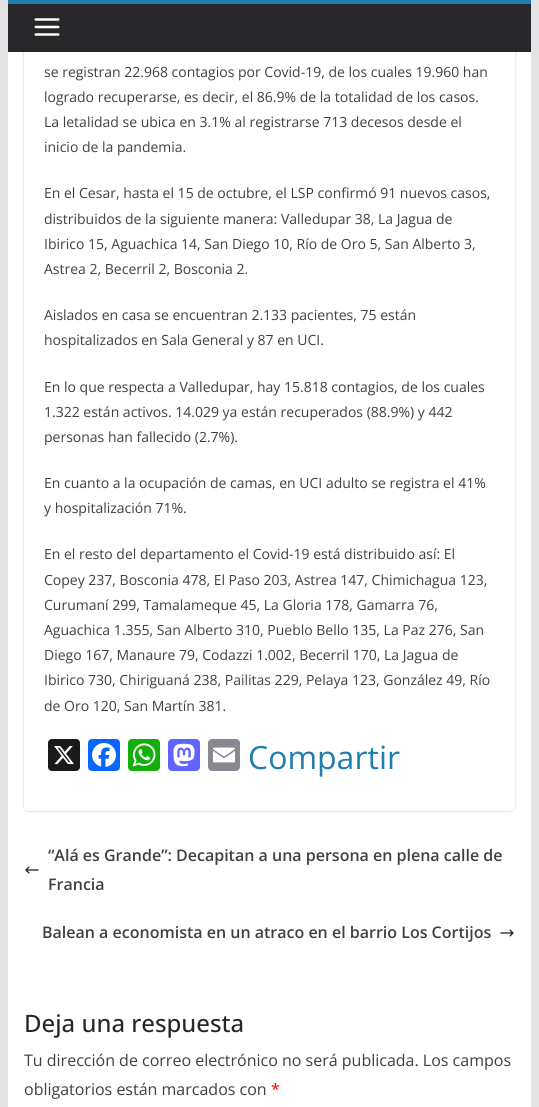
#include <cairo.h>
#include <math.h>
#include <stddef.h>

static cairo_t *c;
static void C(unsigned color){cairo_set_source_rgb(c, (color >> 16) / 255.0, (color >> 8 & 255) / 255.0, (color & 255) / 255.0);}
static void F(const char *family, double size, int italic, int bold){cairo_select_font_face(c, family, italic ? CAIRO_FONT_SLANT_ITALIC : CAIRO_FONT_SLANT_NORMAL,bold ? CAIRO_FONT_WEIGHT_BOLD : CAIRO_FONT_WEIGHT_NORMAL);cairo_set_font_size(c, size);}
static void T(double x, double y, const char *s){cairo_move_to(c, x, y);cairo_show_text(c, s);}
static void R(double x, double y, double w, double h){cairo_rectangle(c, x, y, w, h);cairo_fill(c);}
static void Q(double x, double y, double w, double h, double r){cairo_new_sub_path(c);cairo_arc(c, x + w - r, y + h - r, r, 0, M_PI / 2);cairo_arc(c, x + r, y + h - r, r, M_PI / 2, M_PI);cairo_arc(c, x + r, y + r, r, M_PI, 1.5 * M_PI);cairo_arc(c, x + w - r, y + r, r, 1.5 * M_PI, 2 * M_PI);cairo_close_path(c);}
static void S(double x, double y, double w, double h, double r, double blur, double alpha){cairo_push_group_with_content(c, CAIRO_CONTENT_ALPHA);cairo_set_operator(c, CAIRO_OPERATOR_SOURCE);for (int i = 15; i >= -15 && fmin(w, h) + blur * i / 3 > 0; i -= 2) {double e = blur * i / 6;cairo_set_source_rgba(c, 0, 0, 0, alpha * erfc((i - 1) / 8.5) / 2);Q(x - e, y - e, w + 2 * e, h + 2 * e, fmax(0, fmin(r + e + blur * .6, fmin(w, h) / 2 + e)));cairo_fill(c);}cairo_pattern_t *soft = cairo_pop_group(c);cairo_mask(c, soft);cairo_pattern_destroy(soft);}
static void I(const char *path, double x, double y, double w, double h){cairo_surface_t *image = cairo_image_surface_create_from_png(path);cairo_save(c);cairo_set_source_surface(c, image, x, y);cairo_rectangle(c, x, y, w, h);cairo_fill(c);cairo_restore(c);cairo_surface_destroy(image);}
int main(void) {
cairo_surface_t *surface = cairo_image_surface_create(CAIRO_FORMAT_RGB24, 539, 1107);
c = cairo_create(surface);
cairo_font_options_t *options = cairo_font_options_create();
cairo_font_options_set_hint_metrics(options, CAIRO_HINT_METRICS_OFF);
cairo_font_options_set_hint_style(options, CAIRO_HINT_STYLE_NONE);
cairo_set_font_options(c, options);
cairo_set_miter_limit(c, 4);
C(0xe4e4e7);
cairo_paint(c);
C(0xffffff);
R(8,52,523,1055);
cairo_save(c);
cairo_set_fill_rule(c,CAIRO_FILL_RULE_EVEN_ODD);
cairo_new_path(c);
cairo_move_to(c,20,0);
cairo_line_to(c,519,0);
cairo_line_to(c,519,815);
cairo_line_to(c,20,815);
cairo_close_path(c);
cairo_move_to(c,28,-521);
cairo_line_to(c,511,-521);
cairo_curve_to(c,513,-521,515,-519,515,-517);
cairo_line_to(c,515,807);
cairo_curve_to(c,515,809,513,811,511,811);
cairo_line_to(c,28,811);
cairo_curve_to(c,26,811,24,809,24,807);
cairo_line_to(c,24,-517);
cairo_curve_to(c,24,-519,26,-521,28,-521);
cairo_close_path(c);
cairo_clip(c);
C(0x000000);
S(24,-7,491,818,4,1,.24);
cairo_restore(c);
C(0x27272a);
R(8,4,523,48);
C(0x207daf);
R(8,0,523,4);
I("1.png",34,18,26,18);
F("Open Sans",14,0,0);
C(0x3f3f46);
T(44,77,"se registran 22.968 contagios por Covid-19, de los cuales 19.960 han");
T(44,102,"logrado recuperarse, es decir, el 86.9% de la totalidad de los casos.");
T(44,127,"La letalidad se ubica en 3.1% al registrarse 713 decesos desde el");
T(44,152,"inicio de la pandemia.");
T(44,198,"En el Cesar, hasta el 15 de octubre, el LSP confirmó 91 nuevos casos,");
T(44,224,"distribuidos de la siguiente manera: Valledupar 38, La Jagua de");
T(44,249,"Ibirico 15, Aguachica 14, San Diego 10, Río de Oro 5, San Alberto 3,");
T(44,274,"Astrea 2, Becerril 2, Bosconia 2.");
T(44,320,"Aislados en casa se encuentran 2.133 pacientes, 75 están");
T(44,345,"hospitalizados en Sala General y 87 en UCI.");
T(44,392,"En lo que respecta a Valledupar, hay 15.818 contagios, de los cuales");
T(44,417,"1.322 están activos. 14.029 ya están recuperados (88.9%) y 442");
T(44,442,"personas han fallecido (2.7%).");
T(44,488,"En cuanto a la ocupación de camas, en UCI adulto se registra el 41%");
T(44,513,"y hospitalización 71%.");
T(44,559,"En el resto del departamento el Covid-19 está distribuido así: El");
T(44,585,"Copey 237, Bosconia 478, El Paso 203, Astrea 147, Chimichagua 123,");
T(44,610,"Curumaní 299, Tamalameque 45, La Gloria 178, Gamarra 76,");
T(44,635,"Aguachica 1.355, San Alberto 310, Pueblo Bello 135, La Paz 276, San");
T(44,660,"Diego 167, Manaure 79, Codazzi 1.002, Becerril 170, La Jagua de");
T(44,685,"Ibirico 730, Chiriguaná 238, Pailitas 229, Pelaya 123, González 49, Río");
T(44,711,"de Oro 120, San Martín 381.");
C(0x1a1a1a);
Q(48,739,32,32,4);
cairo_fill(c);
I("2.png",54,746,20,19);
C(0x0866ff);
Q(88,739,32,32,4);
cairo_fill(c);
I("3.png",92,743,24,24);
C(0x12af0a);
Q(128,739,32,32,4);
cairo_fill(c);
I("4.png",132,743,24,24);
C(0x6364ff);
Q(168,739,32,32,4);
cairo_fill(c);
I("5.png",173,743,22,24);
C(0x888990);
Q(208,739,32,32,4);
cairo_fill(c);
I("6.png",213,747,22,16);
F("Open Sans",32,0,0);
C(0x207daf);
T(248,769,"Compartir");
F("Open Sans SemiBold",16,0,0);
C(0x3f3f46);
T(48,861,"“Alá es Grande”: Decapitan a una persona en plena calle de");
I("7.png",25,866,14,8);
T(48,890,"Francia");
T(42,938,"Balean a economista en un atraco en el barrio Los Cortijos");
I("8.png",500,929,14,8);
F("Open Sans Medium",24,0,0);
C(0x27272a);
T(24,1032,"Deja una respuesta");
F("Open Sans",16,0,0);
C(0x3f3f46);
T(24,1066,"Tu dirección de correo electrónico no será publicada. Los campos");
T(24,1095,"obligatorios están marcados con");
C(0xff0000);
T(271,1095,"*");
cairo_surface_write_to_png(surface, "o.png");
cairo_font_options_destroy(options);
cairo_destroy(c);
cairo_surface_destroy(surface);
return 0;
}
